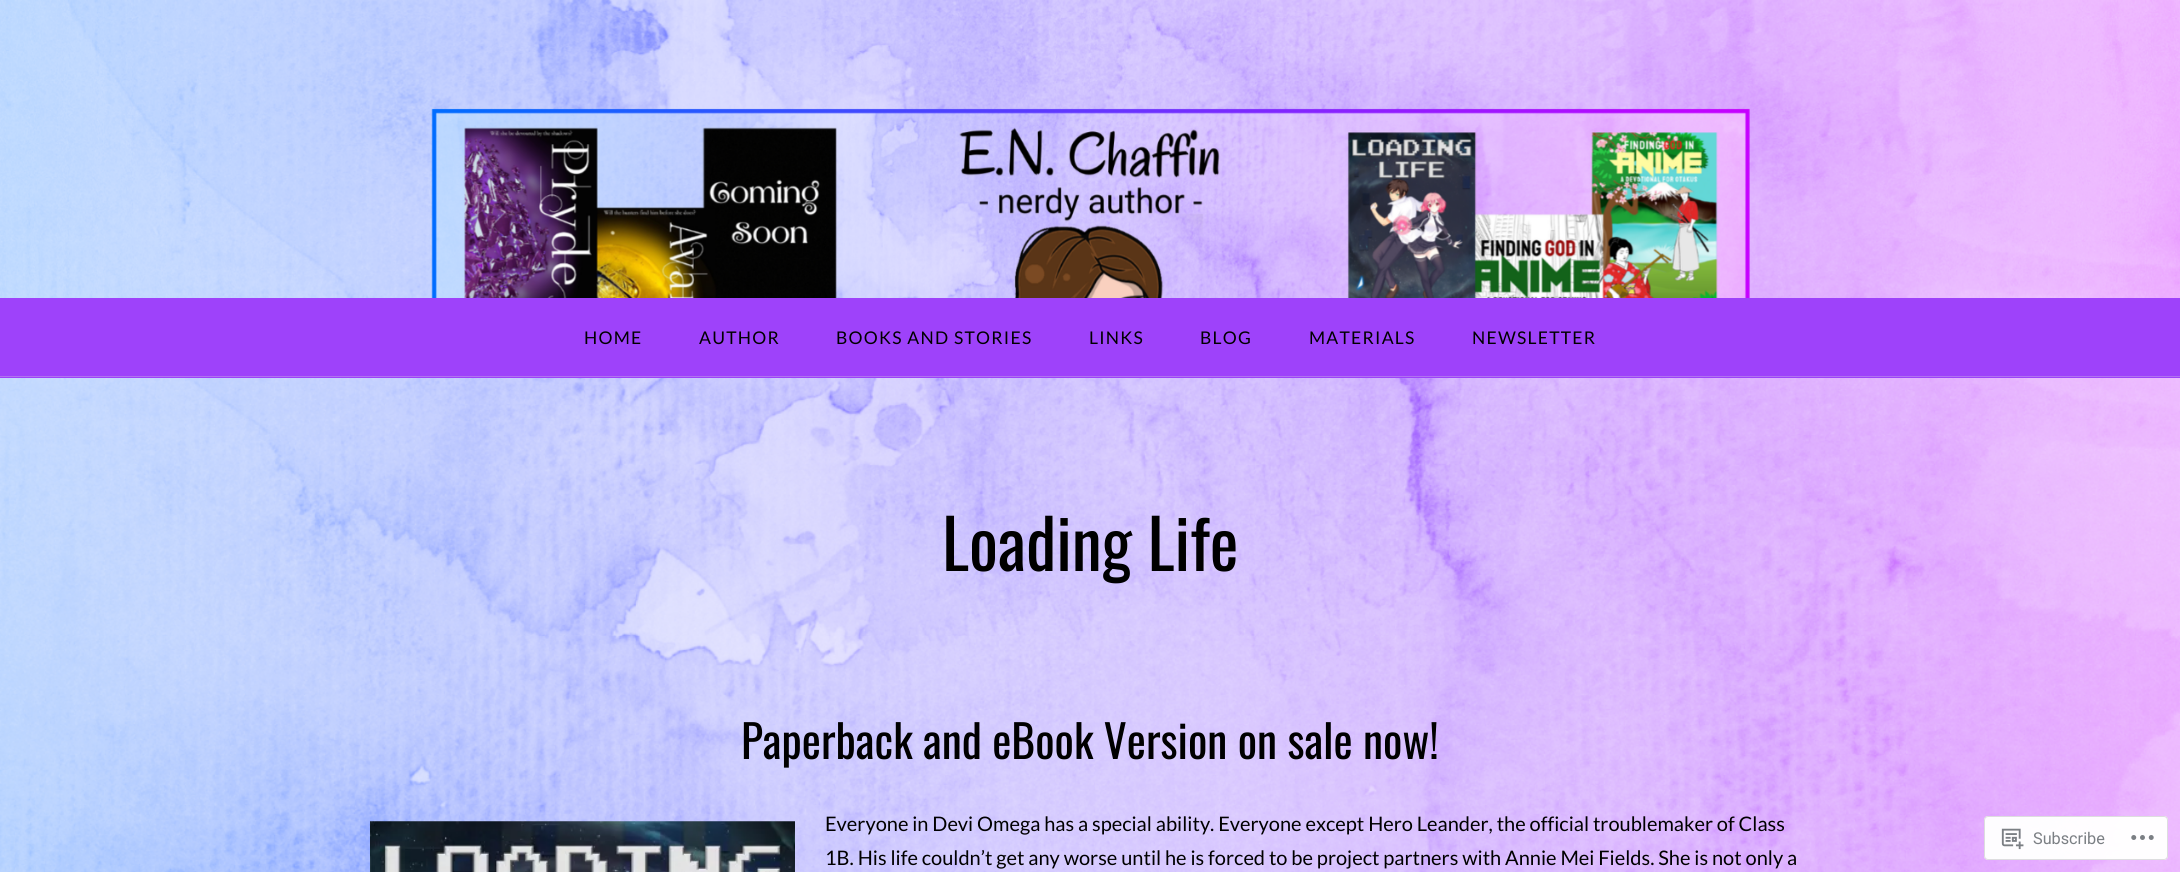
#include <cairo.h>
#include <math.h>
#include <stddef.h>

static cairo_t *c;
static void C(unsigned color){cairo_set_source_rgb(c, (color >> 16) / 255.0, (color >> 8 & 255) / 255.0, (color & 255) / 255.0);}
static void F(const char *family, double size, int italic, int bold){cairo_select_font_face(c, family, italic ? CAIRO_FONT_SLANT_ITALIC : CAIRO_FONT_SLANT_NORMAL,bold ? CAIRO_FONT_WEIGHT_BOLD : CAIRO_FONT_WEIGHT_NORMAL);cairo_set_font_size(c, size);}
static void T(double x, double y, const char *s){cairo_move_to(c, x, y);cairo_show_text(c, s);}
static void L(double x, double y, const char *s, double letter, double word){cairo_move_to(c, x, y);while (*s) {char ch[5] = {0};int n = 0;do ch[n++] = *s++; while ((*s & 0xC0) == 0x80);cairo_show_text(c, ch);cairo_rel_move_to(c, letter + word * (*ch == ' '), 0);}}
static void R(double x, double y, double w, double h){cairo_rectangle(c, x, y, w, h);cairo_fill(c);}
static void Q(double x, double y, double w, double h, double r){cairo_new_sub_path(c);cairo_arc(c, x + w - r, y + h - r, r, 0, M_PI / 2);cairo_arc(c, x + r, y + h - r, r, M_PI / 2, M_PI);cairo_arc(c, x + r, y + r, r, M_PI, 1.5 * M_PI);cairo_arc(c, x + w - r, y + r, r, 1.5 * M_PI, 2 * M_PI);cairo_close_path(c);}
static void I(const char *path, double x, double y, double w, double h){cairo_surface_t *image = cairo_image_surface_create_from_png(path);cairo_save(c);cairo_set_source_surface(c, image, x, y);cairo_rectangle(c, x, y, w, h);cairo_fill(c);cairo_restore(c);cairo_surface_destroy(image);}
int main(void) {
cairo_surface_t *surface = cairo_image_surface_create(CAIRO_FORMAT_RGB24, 2180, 872);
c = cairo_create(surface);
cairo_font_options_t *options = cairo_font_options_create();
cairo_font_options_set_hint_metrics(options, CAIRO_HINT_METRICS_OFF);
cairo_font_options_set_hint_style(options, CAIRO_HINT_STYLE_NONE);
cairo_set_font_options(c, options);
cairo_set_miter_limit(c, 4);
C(0xffffff);
cairo_paint(c);
I("1.png",0,378,2180,494);
I("2.png",0,0,2180,298);
C(0x9e42fa);
R(0,298,2180,80);
C(0xb171f1);
R(0,376,2180,1);
F("Lato",17.5,0,0);
C(0x000000);
L(584,344,"HOME",1.25,0);
L(699,344,"AUTHOR",1.25,0);
L(836,344,"BOOKS AND STORIES",1.25,0);
L(1089,344,"LINKS",1.25,0);
L(1200,344,"BLOG",1.25,0);
L(1309,344,"MATERIALS",1.25,0);
L(1472,344,"NEWSLETTER",1.25,0);
F("Oswald",68.25,0,0);
T(942,571,"Loading Life");
F("Oswald",45.5,0,0);
T(741,759,"Paperback and eBook Version on sale now!");
I("3.png",370,821,425,51);
F("Lato",20,0,0);
T(825,831,"Everyone in Devi Omega has a special ability. Everyone except Hero Leander, the official troublemaker of Class");
T(825,865,"1B. His life couldn’t get any worse until he is forced to be project partners with Annie Mei Fields. She is not only a");
cairo_set_source_rgba(c,1,1,1,0.98);
Q(1984,816,184,44,4);
cairo_fill(c);
Q(1984.5,816.5,183,43,3.5);
cairo_set_source_rgba(c,0.863,0.863,0.871,0.98);
cairo_set_line_width(c,1);
cairo_stroke(c);
I("4.png",2001,828,23,22);
F("Roboto",16.25,0,0);
C(0x7b7f84);
T(2033,844,"Subscribe");
I("5.png",2131,835,23,5);
cairo_surface_write_to_png(surface, "o.png");
cairo_font_options_destroy(options);
cairo_destroy(c);
cairo_surface_destroy(surface);
return 0;
}
